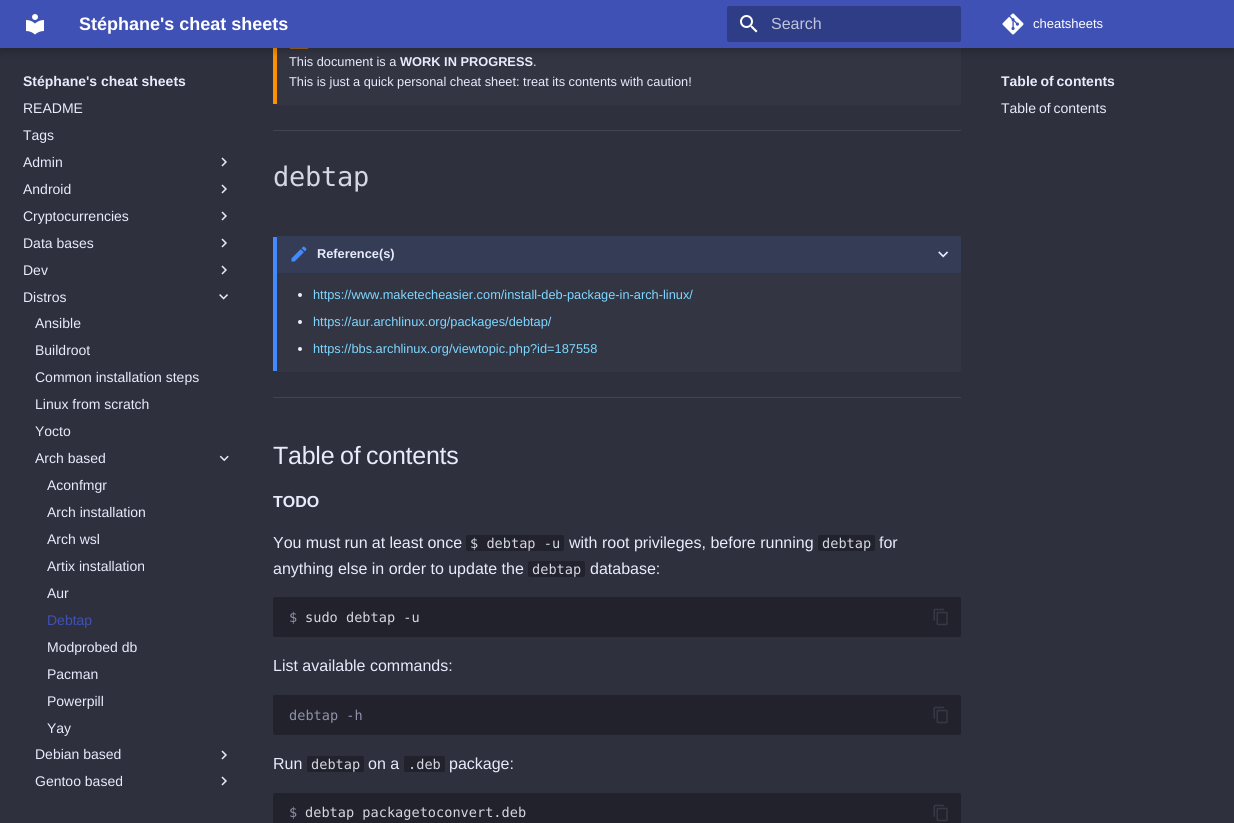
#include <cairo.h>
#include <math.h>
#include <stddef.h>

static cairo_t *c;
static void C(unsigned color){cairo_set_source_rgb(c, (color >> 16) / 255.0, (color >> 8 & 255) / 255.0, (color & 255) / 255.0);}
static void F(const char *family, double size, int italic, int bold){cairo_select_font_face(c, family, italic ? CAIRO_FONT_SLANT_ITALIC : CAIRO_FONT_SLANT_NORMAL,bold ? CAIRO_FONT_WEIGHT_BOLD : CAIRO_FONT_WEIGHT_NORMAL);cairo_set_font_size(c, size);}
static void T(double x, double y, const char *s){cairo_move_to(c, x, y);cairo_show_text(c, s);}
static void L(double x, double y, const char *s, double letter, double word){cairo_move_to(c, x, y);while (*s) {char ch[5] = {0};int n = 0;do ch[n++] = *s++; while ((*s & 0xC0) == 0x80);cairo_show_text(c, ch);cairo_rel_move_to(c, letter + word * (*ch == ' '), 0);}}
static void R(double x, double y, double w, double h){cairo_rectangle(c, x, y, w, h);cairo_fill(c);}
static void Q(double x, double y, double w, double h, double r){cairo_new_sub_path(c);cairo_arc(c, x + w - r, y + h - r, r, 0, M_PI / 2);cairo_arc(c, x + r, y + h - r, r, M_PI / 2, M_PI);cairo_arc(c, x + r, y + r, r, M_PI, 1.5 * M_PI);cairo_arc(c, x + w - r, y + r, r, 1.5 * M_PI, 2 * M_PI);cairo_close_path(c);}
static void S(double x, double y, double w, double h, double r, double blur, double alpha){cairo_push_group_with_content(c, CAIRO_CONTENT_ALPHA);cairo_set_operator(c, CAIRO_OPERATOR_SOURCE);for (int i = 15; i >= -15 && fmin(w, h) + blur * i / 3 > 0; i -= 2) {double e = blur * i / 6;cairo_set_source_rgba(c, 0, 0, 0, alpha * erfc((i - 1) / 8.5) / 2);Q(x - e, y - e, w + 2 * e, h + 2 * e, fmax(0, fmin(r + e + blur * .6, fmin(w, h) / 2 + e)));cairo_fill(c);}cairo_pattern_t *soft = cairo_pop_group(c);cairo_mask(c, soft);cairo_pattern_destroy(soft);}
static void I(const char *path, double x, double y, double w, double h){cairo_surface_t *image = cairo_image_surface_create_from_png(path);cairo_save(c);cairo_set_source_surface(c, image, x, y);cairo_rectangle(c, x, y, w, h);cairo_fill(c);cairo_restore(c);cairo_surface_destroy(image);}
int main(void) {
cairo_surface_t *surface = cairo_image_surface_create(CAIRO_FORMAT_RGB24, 1234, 823);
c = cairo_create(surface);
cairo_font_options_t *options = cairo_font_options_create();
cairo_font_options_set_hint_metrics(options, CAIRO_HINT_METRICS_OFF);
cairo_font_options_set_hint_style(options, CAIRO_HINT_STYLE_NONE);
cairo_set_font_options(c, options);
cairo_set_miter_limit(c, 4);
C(0x2e303e);
cairo_paint(c);
C(0x333543);
cairo_new_path(c);
cairo_move_to(c,277,23);
cairo_line_to(c,959,23);
cairo_curve_to(c,960,23,961,24,961,25);
cairo_line_to(c,961,103);
cairo_curve_to(c,961,104,960,105,959,105);
cairo_line_to(c,277,105);
cairo_close_path(c);
cairo_fill(c);
C(0xff9100);
R(273,48,4,56);
I("7.png",289,48,20,1);
C(0x000000);
S(0,4,1234,48,0,4,.2);
C(0x4051b5);
R(0,0,1234,48);
I("1.png",26,14,18,21);
F("Liberation Sans",18,0,1);
C(0xffffff);
T(79,30,"Stéphane's cheat sheets");
C(0x2f3c86);
Q(727,6,234,36,2);
cairo_fill(c);
I("2.png",740,15,18,18);
F("Liberation Sans",16,0,0);
C(0xc1c5db);
T(771,29,"Search");
I("3.png",1002,13,22,22);
F("Liberation Sans",13,0,0);
C(0xffffff);
T(1033,28,"cheatsheets");
F("Liberation Sans",14,0,1);
C(0xe9ebfc);
T(23,86,"Stéphane's cheat sheets");
F("Liberation Sans",14,0,0);
T(23,113,"README");
T(23,140,"Tags");
T(23,167,"Admin");
I("4.png",221,157,6,10);
T(23,194,"Android");
I("4.png",221,184,6,10);
T(23,221,"Cryptocurrencies");
I("4.png",221,211,6,10);
T(23,248,"Data bases");
I("4.png",221,238,6,10);
T(23,275,"Dev");
I("4.png",221,265,6,10);
T(23,302,"Distros");
I("5.png",219,294,9,6);
T(35,328,"Ansible");
T(35,355,"Buildroot");
T(35,382,"Common installation steps");
T(35,409,"Linux from scratch");
T(35,436,"Yocto");
T(35,463,"Arch based");
I("6.png",219,455,10,7);
T(47,490,"Aconfmgr");
T(47,517,"Arch installation");
T(47,544,"Arch wsl");
T(47,571,"Artix installation");
T(47,598,"Aur");
C(0x4051b5);
T(47,625,"Debtap");
C(0xe9ebfc);
T(47,652,"Modprobed db");
T(47,679,"Pacman");
T(47,706,"Powerpill");
T(47,733,"Yay");
T(35,759,"Debian based");
I("4.png",221,750,6,10);
T(35,786,"Gentoo based");
I("4.png",221,776,6,10);
F("Liberation Sans",12.8,0,0);
T(289,66,"This document is a");
F("Liberation Sans",12.8,0,1);
T(400,66,"WORK IN PROGRESS");
F("Liberation Sans",12.8,0,0);
T(533,66,".");
T(289,86,"This is just a quick personal cheat sheet: treat its contents with caution!");
C(0x424454);
R(273,130,688,1);
F("DejaVu Sans Mono",27,0,0);
C(0xd5d7e2);
L(273,186,"debtap",-.25,0);
C(0x333543);
cairo_new_path(c);
cairo_move_to(c,277,236);
cairo_line_to(c,959,236);
cairo_curve_to(c,960,236,961,237,961,238);
cairo_line_to(c,961,370);
cairo_curve_to(c,961,371,960,372,959,372);
cairo_line_to(c,277,372);
cairo_close_path(c);
cairo_fill(c);
C(0x448aff);
R(273,237,4,134);
C(0x353d56);
cairo_new_path(c);
cairo_move_to(c,277,236);
cairo_line_to(c,959,236);
cairo_curve_to(c,960,236,961,237,961,238);
cairo_line_to(c,961,273);
cairo_line_to(c,277,273);
cairo_close_path(c);
cairo_fill(c);
I("8.png",291,246,16,16);
F("Liberation Sans",12.8,0,1);
C(0xe9ebfc);
T(317,258,"Reference(s)");
I("9.png",938,251,11,7);
cairo_arc(c,300,295,2,0,2 * M_PI);
cairo_fill(c);
F("Liberation Sans",12.8,0,0);
C(0x7fd7ff);
T(313,299,"https://www.maketecheasier.com/install-deb-package-in-arch-linux/");
C(0xe9ebfc);
cairo_new_path(c);
cairo_arc(c,300,322,2,0,2 * M_PI);
cairo_fill(c);
C(0x7fd7ff);
T(313,326,"https://aur.archlinux.org/packages/debtap/");
C(0xe9ebfc);
cairo_new_path(c);
cairo_arc(c,300,349,2,0,2 * M_PI);
cairo_fill(c);
C(0x7fd7ff);
T(313,353,"https://bbs.archlinux.org/viewtopic.php?id=187558");
C(0x424454);
R(273,397,688,1);
F("Liberation Sans",25,0,0);
C(0xe9ebfc);
L(273,464,"Table of contents",-.25,-1);
F("Liberation Sans",16,0,1);
T(273,507,"TODO");
F("Liberation Sans",16,0,0);
L(273,548,"You must run at least once",0,-.25);
C(0x21222c);
Q(466,535,98,16,2);
cairo_fill(c);
F("DejaVu Sans Mono",13.6,0,0);
C(0xd5d7e2);
T(470,548,"$ debtap -u");
F("Liberation Sans",16,0,0);
C(0xe9ebfc);
T(569,548,"with root privileges, before running");
C(0x21222c);
Q(818,535,57,16,2);
cairo_fill(c);
F("DejaVu Sans Mono",13.6,0,0);
C(0xd5d7e2);
T(822,548,"debtap");
F("Liberation Sans",16,0,0);
C(0xe9ebfc);
T(879,548,"for");
T(273,574,"anything else in order to update the");
C(0x21222c);
Q(528,561,57,16,2);
cairo_fill(c);
F("DejaVu Sans Mono",13.6,0,0);
C(0xd5d7e2);
T(532,574,"debtap");
F("Liberation Sans",16,0,0);
C(0xe9ebfc);
T(590,574,"database:");
C(0x21222c);
Q(273,597,688,40,2);
cairo_fill(c);
F("DejaVu Sans Mono",13.6,0,0);
C(0x8f92ab);
T(289,622,"$");
C(0xd5d7e2);
T(305,622,"sudo debtap -u");
I("10.png",933,608,15,18);
F("Liberation Sans",16,0,0);
C(0xe9ebfc);
T(273,671,"List available commands:");
C(0x21222c);
Q(273,695,688,40,2);
cairo_fill(c);
F("DejaVu Sans Mono",13.6,0,0);
C(0x8f92ab);
T(289,720,"debtap -h");
I("10.png",933,706,15,18);
F("Liberation Sans",16,0,0);
C(0xe9ebfc);
T(273,769,"Run");
C(0x21222c);
Q(307,756,57,16,2);
cairo_fill(c);
F("DejaVu Sans Mono",13.6,0,0);
C(0xd5d7e2);
T(311,769,"debtap");
F("Liberation Sans",16,0,0);
C(0xe9ebfc);
T(368,769,"on a");
C(0x21222c);
Q(404,756,41,16,2);
cairo_fill(c);
F("DejaVu Sans Mono",13.6,0,0);
C(0xd5d7e2);
T(408,769,".deb");
F("Liberation Sans",16,0,0);
C(0xe9ebfc);
T(449,769,"package:");
C(0x21222c);
Q(273,793,688,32,2);
cairo_fill(c);
F("DejaVu Sans Mono",13.6,0,0);
C(0x8f92ab);
T(289,817,"$");
C(0xd5d7e2);
T(305,817,"debtap packagetoconvert.deb");
I("10.png",933,804,15,18);
cairo_save(c);
cairo_rectangle(c,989,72,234,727);
cairo_clip(c);
cairo_rectangle(c,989,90,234,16);
cairo_clip(c);
C(0x2e303e);
S(981,64,250,34,0,4,1);
cairo_restore(c);
F("Liberation Sans",14,0,1);
C(0xe9ebfc);
L(1001,86,"Table of contents",0,-1);
F("Liberation Sans",14,0,0);
L(1001,113,"Table of contents",0,-1);
cairo_surface_write_to_png(surface, "o.png");
cairo_font_options_destroy(options);
cairo_destroy(c);
cairo_surface_destroy(surface);
return 0;
}
